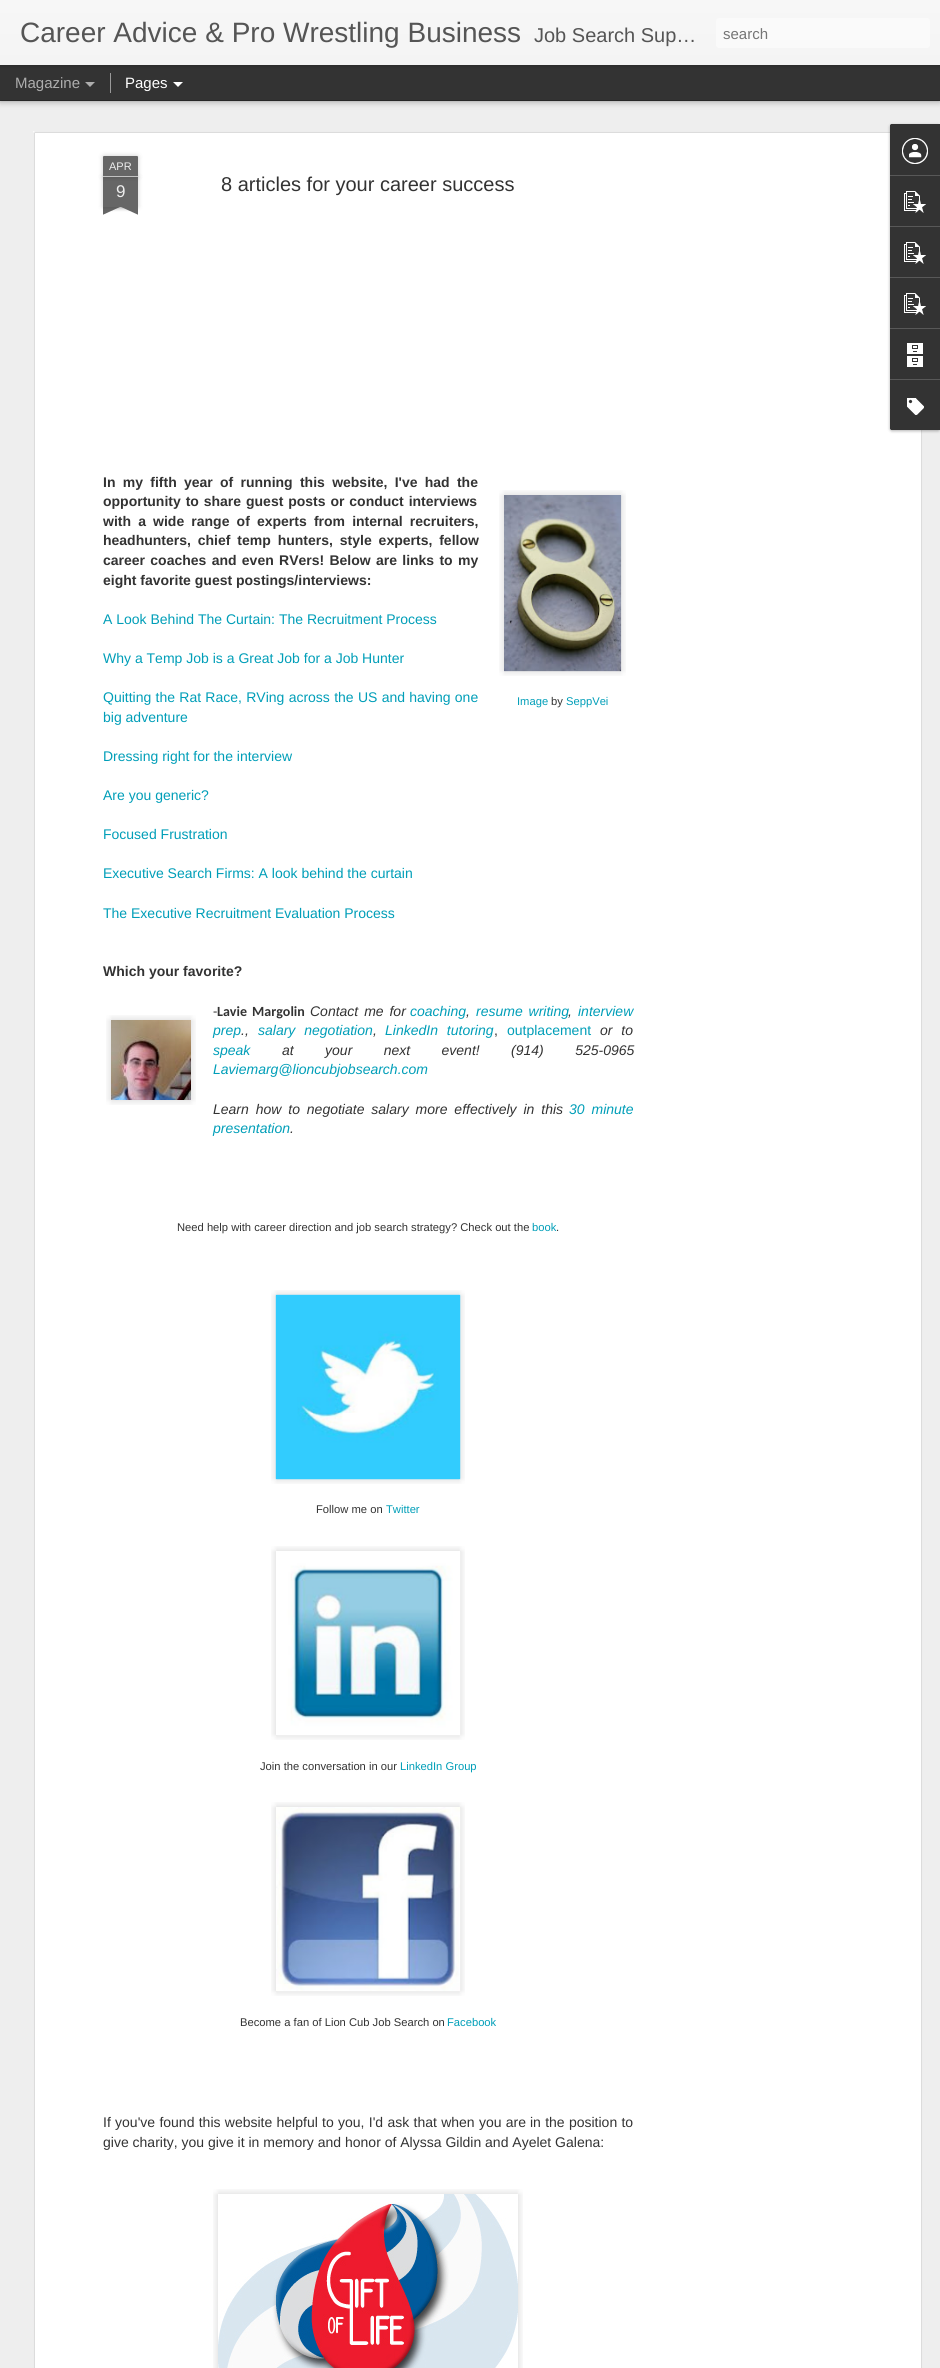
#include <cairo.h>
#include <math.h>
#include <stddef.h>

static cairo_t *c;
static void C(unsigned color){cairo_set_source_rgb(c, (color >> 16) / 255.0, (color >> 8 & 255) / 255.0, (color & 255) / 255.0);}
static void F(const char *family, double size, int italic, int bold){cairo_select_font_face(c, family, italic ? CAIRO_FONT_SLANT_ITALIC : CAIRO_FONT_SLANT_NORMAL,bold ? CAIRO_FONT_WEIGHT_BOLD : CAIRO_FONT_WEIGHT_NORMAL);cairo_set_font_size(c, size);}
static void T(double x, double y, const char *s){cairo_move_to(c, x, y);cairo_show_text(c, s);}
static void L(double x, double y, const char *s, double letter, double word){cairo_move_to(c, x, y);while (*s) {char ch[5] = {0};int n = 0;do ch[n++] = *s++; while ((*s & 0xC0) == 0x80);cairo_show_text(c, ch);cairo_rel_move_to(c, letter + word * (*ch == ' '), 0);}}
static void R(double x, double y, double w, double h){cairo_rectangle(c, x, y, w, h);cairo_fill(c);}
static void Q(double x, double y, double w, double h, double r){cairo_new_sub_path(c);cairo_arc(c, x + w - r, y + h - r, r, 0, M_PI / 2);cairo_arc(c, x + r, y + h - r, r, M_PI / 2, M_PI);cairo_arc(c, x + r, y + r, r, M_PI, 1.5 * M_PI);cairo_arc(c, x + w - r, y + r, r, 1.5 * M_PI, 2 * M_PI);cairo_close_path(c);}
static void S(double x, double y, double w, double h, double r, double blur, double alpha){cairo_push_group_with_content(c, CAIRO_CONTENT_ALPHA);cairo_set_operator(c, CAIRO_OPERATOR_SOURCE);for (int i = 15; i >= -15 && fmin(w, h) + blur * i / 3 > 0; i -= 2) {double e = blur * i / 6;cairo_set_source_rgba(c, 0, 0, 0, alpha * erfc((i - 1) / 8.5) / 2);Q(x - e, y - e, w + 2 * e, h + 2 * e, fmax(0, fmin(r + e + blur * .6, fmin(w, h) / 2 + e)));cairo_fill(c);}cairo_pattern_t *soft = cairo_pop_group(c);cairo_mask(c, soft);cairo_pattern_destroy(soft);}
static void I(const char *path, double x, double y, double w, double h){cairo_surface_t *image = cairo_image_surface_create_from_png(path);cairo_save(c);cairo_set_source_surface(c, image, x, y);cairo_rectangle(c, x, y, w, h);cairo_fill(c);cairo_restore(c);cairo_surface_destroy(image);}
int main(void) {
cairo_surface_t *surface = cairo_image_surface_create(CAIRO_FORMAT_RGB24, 940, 2368);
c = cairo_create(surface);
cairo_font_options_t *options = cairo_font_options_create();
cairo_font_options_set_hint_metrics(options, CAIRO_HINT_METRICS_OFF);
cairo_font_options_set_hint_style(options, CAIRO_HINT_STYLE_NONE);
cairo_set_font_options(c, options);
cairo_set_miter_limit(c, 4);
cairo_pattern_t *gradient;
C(0x333333);
cairo_paint(c);
C(0xeeeeee);
R(0,101,940,2267);
C(0x000000);
S(0,65,940,35,0,4,.5);
C(0x333333);
R(0,65,940,35);
C(0x999999);
R(110,73,1,20);
C(0x000000);
S(0,0,940,65,0,2.5,.3);
gradient = cairo_pattern_create_linear(0,0,0,65);
cairo_pattern_add_color_stop_rgba(gradient,0,0.969,0.969,0.969,1);
cairo_pattern_add_color_stop_rgba(gradient,1,0.957,0.957,0.957,1);
cairo_set_source(c,gradient);
cairo_pattern_destroy(gradient);
R(0,0,940,65);
F("Liberation Sans",28,0,0);
C(0x555555);
T(20,42,"Career Advice & Pro Wrestling Business");
F("Liberation Sans",20,0,0);
T(534,42,"Job Search Sup…");
C(0xfafafa);
Q(716,18,214,30,3);
cairo_fill(c);
F("Liberation Sans",15,0,0);
C(0x757575);
T(723,39,"search");
C(0xadadad);
T(15,88,"Magazine");
cairo_new_path(c);
cairo_move_to(c,85,82);
cairo_line_to(c,95,82);
cairo_line_to(c,90,87);
cairo_close_path(c);
cairo_fill(c);
C(0xffffff);
T(125,88,"Pages");
cairo_new_path(c);
cairo_move_to(c,173,82);
cairo_line_to(c,183,82);
cairo_line_to(c,178,87);
cairo_close_path(c);
cairo_fill(c);
R(33,131,890,2237);
I("1.png",33,131,890,2237);
C(0x000000);
S(103,177,35,30,0,2.5,.2);
C(0x666666);
R(103,177,35,30);
C(0x000000);
S(103,156,35,21,1,2.5,.2);
C(0x666666);
cairo_new_path(c);
cairo_move_to(c,104,156);
cairo_line_to(c,137,156);
cairo_curve_to(c,137.5,156,138,156.5,138,157);
cairo_line_to(c,138,177);
cairo_line_to(c,103,177);
cairo_line_to(c,103,157);
cairo_curve_to(c,103,156.5,103.5,156,104,156);
cairo_close_path(c);
cairo_fill(c);
C(0xc2c2c2);
R(103,176,35,1);
F("Liberation Sans",11,0,0);
C(0xeeeeee);
T(109,170,"APR");
F("Liberation Sans",17,0,0);
T(116,197,"9");
cairo_save(c);
cairo_rectangle(c,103,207,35,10);
cairo_clip(c);
C(0x000000);
S(94,197,50,10,0,2.5,.2);
cairo_restore(c);
cairo_save(c);
cairo_rectangle(c,103,207,35,10);
cairo_clip(c);
C(0x666666);
cairo_new_path(c);
cairo_move_to(c,94,208);
cairo_line_to(c,140,187);
cairo_line_to(c,144,196);
cairo_line_to(c,98,217);
cairo_close_path(c);
cairo_fill(c);
cairo_restore(c);
cairo_save(c);
cairo_rectangle(c,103,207,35,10);
cairo_clip(c);
C(0x000000);
S(97,197,50,10,0,2.5,.2);
cairo_restore(c);
cairo_save(c);
cairo_rectangle(c,103,207,35,10);
cairo_clip(c);
C(0x666666);
cairo_new_path(c);
cairo_move_to(c,101,187);
cairo_line_to(c,147,208);
cairo_line_to(c,143,217);
cairo_line_to(c,97,196);
cairo_close_path(c);
cairo_fill(c);
cairo_restore(c);
F("Liberation Sans",20,0,0);
C(0x333333);
T(221,191,"8 articles for your career success");
F("Liberation Sans",14,0,1);
L(103,487,"In my fifth year of running this website, I've had the",0,3.4);
L(103,506,"opportunity to share guest posts or conduct interviews",0,1);
L(103,526,"with a wide range of experts from internal recruiters,",0,3.25);
L(103,545,"headhunters, chief temp hunters, style experts, fellow",0,3);
L(103,565,"career coaches and even RVers! Below are links to my",0,1.4);
T(103,585,"eight favorite guest postings/interviews:");
F("Liberation Sans",14,0,0);
C(0x009eb8);
T(103,624,"A Look Behind The Curtain: The Recruitment Process");
T(103,663,"Why a Temp Job is a Great Job for a Job Hunter");
L(103,702,"Quitting the Rat Race, RVing across the US and having one",0,.4);
I("2.png",499,490,127,186);
I("3.png",504,495,118,177);
F("Liberation Sans",11.2,0,0);
T(517,705,"Image");
C(0x333333);
T(551,705,"by");
C(0x009eb8);
T(566,705,"SeppVei");
F("Liberation Sans",14,0,0);
T(103,722,"big adventure");
T(103,761,"Dressing right for the interview");
T(103,800,"Are you generic?");
T(103,839,"Focused Frustration");
T(103,878,"Executive Search Firms: A look behind the curtain");
T(103,918,"The Executive Recruitment Evaluation Process");
F("Liberation Sans",14,0,1);
C(0x333333);
T(103,976,"Which your favorite?");
F("Carlito",14,0,0);
T(213,1016,"-");
F("Carlito",14,0,1);
L(217,1016,"Lavie Margolin",0,2);
F("Liberation Sans",14,1,0);
L(310,1016,"Contact me for",0,2);
C(0x009eb8);
T(410,1016,"coaching");
L(476,1016,"resume writing",0,2);
T(578,1016,"interview");
I("4.png",106,1015,90,90);
L(258,1035,"salary negotiation",0,5);
C(0x333333);
T(466,1016,",");
T(568,1016,",");
C(0x009eb8);
T(213,1035,"prep");
C(0x333333);
T(241,1035,".,");
T(373,1035,",");
C(0x009eb8);
L(385,1035,"LinkedIn tutoring",0,5);
F("Liberation Sans",14,0,0);
C(0x333333);
T(494,1035,",");
C(0x009eb8);
T(507,1035,"outplacement");
F("Liberation Sans",14,1,0);
C(0x333333);
L(600,1035,"or to",0,5);
C(0x009eb8);
T(213,1055,"speak");
C(0x333333);
L(282,1055,"at your next event! (914) 525-0965",0,27.5);
C(0x009eb8);
T(213,1074,"Laviemarg@lioncubjobsearch.com");
C(0x333333);
L(213,1114,"Learn how to negotiate salary more effectively in this",0,3);
C(0x009eb8);
L(569,1114,"30 minute",0,3);
T(213,1133,"presentation");
C(0x333333);
T(290,1133,".");
F("Liberation Sans",11.2,0,0);
T(177,1231,"Need help with career direction and job search strategy? Check out the");
C(0x009eb8);
T(532,1231,"book");
C(0x333333);
T(556,1231,".");
I("5.png",271,1290,194,194);
I("6.png",275,1294,186,186);
T(316,1513,"Follow me on");
C(0x009eb8);
T(386,1513,"Twitter");
I("7.png",271,1546,194,194);
I("8.png",277,1552,184,184);
C(0x333333);
T(260,1770,"Join the conversation in our");
C(0x009eb8);
T(400,1770,"LinkedIn Group");
I("9.png",271,1802,194,194);
I("10.png",277,1808,184,184);
C(0x333333);
T(240,2026,"Become a fan of Lion Cub Job Search on");
C(0x009eb8);
T(447,2026,"Facebook");
F("Liberation Sans",14,0,0);
C(0x333333);
L(103,2127,"If you've found this website helpful to you, I'd ask that when you are",0,.4);
L(530,2127,"in the position to",0,.4);
T(103,2147,"give charity, you give it in memory and honor of Alyssa Gildin and Ayelet Galena:");
I("11.png",213,2189,310,179);
C(0x000000);
S(890,125,50,306,2,1.5,.3);
C(0x333333);
cairo_new_path(c);
cairo_move_to(c,892,124);
cairo_line_to(c,940,124);
cairo_line_to(c,940,430);
cairo_line_to(c,892,430);
cairo_curve_to(c,891,430,890,429,890,428);
cairo_line_to(c,890,126);
cairo_curve_to(c,890,125,891,124,892,124);
cairo_close_path(c);
cairo_fill(c);
cairo_new_path(c);
cairo_move_to(c,892,124);
cairo_line_to(c,940,124);
cairo_line_to(c,940,175);
cairo_line_to(c,890,175);
cairo_line_to(c,890,126);
cairo_curve_to(c,890,125,891,124,892,124);
cairo_close_path(c);
cairo_fill(c);
I("12.png",902,138,26,26);
C(0x585858);
R(890,175,50,1);
I("13.png",904,191,22,22);
R(890,226,50,1);
I("13.png",904,242,22,22);
R(890,277,50,1);
I("13.png",904,293,22,22);
R(890,328,50,1);
I("14.png",907,343,16,24);
C(0x333333);
cairo_new_path(c);
cairo_move_to(c,890,379);
cairo_line_to(c,940,379);
cairo_line_to(c,940,430);
cairo_line_to(c,892,430);
cairo_curve_to(c,891,430,890,429,890,428);
cairo_close_path(c);
cairo_fill(c);
C(0x585858);
R(890,379,50,1);
I("15.png",907,398,17,17);
cairo_surface_write_to_png(surface, "o.png");
cairo_font_options_destroy(options);
cairo_destroy(c);
cairo_surface_destroy(surface);
return 0;
}
